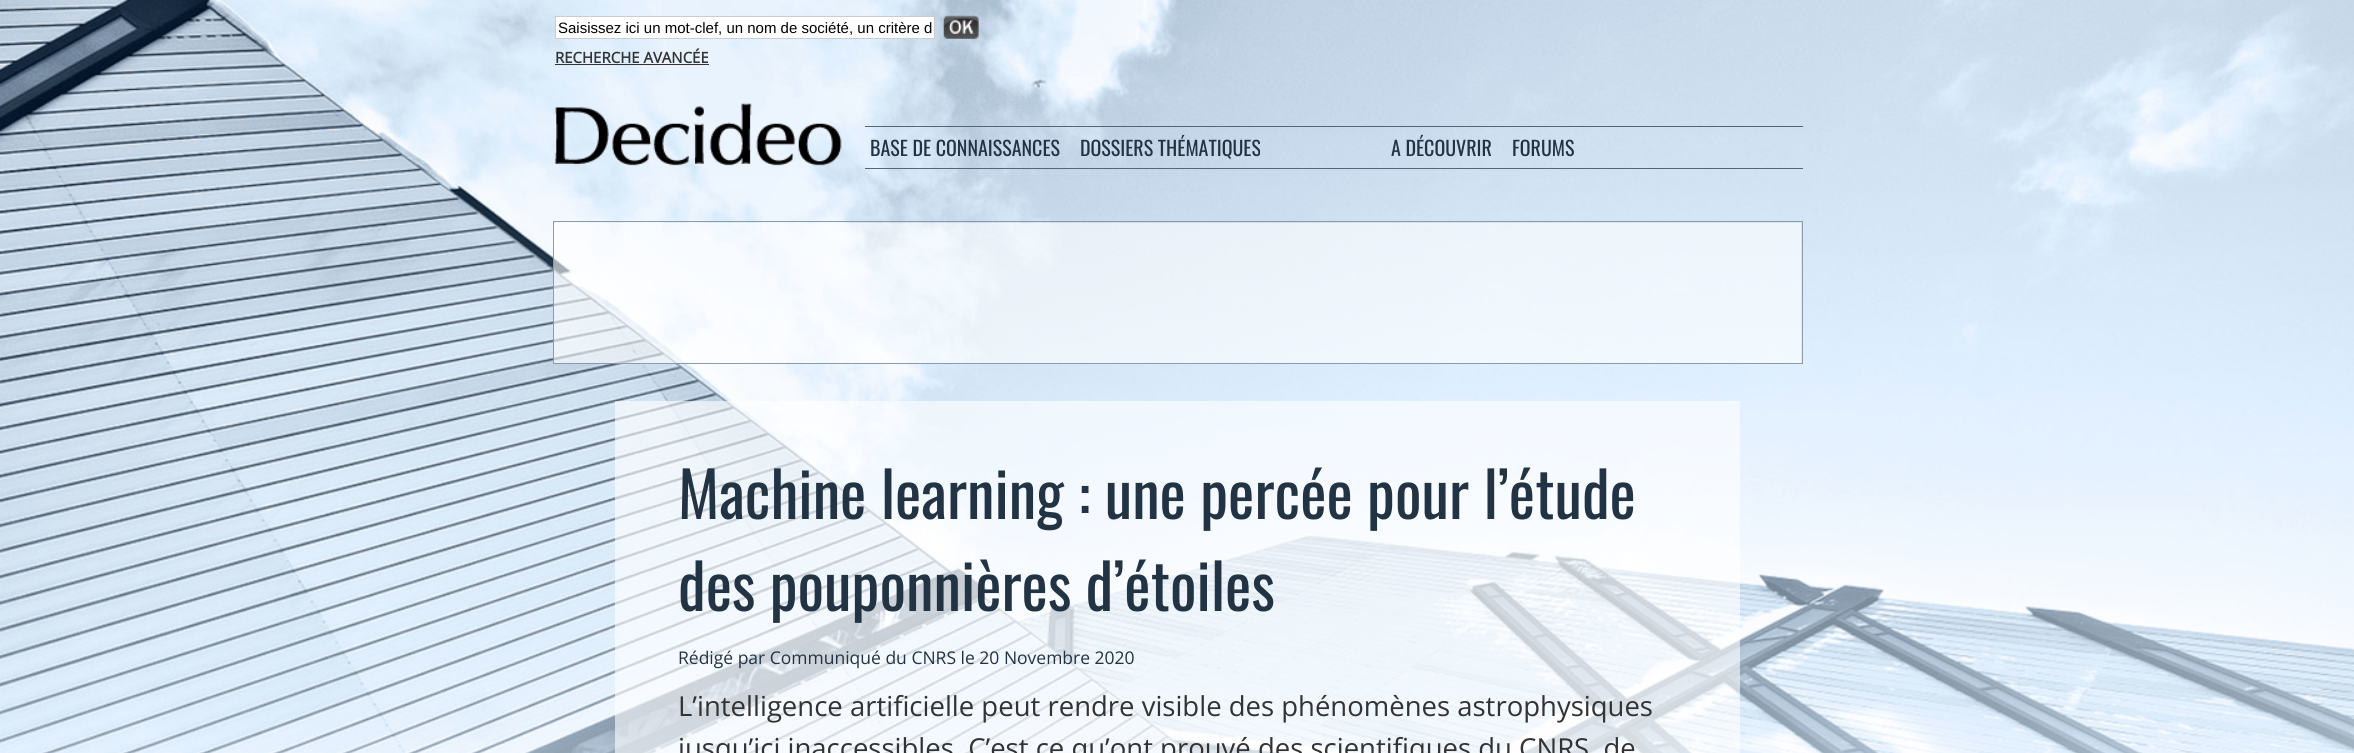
#include <cairo.h>
#include <math.h>
#include <stddef.h>

static cairo_t *c;
static void C(unsigned color){cairo_set_source_rgb(c, (color >> 16) / 255.0, (color >> 8 & 255) / 255.0, (color & 255) / 255.0);}
static void F(const char *family, double size, int italic, int bold){cairo_select_font_face(c, family, italic ? CAIRO_FONT_SLANT_ITALIC : CAIRO_FONT_SLANT_NORMAL,bold ? CAIRO_FONT_WEIGHT_BOLD : CAIRO_FONT_WEIGHT_NORMAL);cairo_set_font_size(c, size);}
static void T(double x, double y, const char *s){cairo_move_to(c, x, y);cairo_show_text(c, s);}
static void R(double x, double y, double w, double h){cairo_rectangle(c, x, y, w, h);cairo_fill(c);}
static void I(const char *path, double x, double y, double w, double h){cairo_surface_t *image = cairo_image_surface_create_from_png(path);cairo_save(c);cairo_set_source_surface(c, image, x, y);cairo_rectangle(c, x, y, w, h);cairo_fill(c);cairo_restore(c);cairo_surface_destroy(image);}
int main(void) {
cairo_surface_t *surface = cairo_image_surface_create(CAIRO_FORMAT_RGB24, 2354, 753);
c = cairo_create(surface);
cairo_font_options_t *options = cairo_font_options_create();
cairo_font_options_set_hint_metrics(options, CAIRO_HINT_METRICS_OFF);
cairo_font_options_set_hint_style(options, CAIRO_HINT_STYLE_NONE);
cairo_set_font_options(c, options);
cairo_set_miter_limit(c, 4);
C(0xffffff);
cairo_paint(c);
I("1.png",0,0,2354,753);
C(0xffffff);
cairo_rectangle(c,555.5,16.5,379,22);
cairo_fill_preserve(c);
C(0xcccccc);
cairo_set_line_width(c,1);
cairo_stroke(c);
F("Liberation Sans",15,0,0);
C(0x000000);
T(558,33,"Saisissez ici un mot-clef, un nom de société, un critère d");
I("2.png",943,15,36,24);
F("Open Sans",15,0,1);
C(0x333333);
T(555,63,"RECHERCHE AVANCÉE");
R(555,64,154,1);
I("3.png",554,103,288,63);
C(0x556677);
R(865,126,938,1);
R(865,168,938,1);
F("Oswald",20,0,0);
C(0x223344);
T(870,156,"BASE DE CONNAISSANCES");
T(1080,156,"DOSSIERS THÉMATIQUES");
T(1391,156,"A DÉCOUVRIR");
T(1512,156,"FORUMS");
cairo_rectangle(c,553.5,221.5,1249,142);
C(0x8a9bac);
cairo_stroke(c);
cairo_set_source_rgba(c,1,1,1,0.6);
R(554,223,1231,140);
R(1785,223,16,140);
R(615,401,1125,352);
F("Oswald",62.5,0,0);
C(0x223344);
T(678,519,"Machine learning : une percée pour l’étude");
T(678,611,"des pouponnières d’étoiles");
F("Open Sans",17.5,0,0);
T(678,664,"Rédigé par Communiqué du CNRS le 20 Novembre 2020");
F("Open Sans",27.5,0,0);
C(0x333333);
T(678,716,"L’intelligence artificielle peut rendre visible des phénomènes astrophysiques");
T(678,758,"jusqu’ici inaccessibles. C’est ce qu’ont prouvé des scientifiques du CNRS, de");
cairo_surface_write_to_png(surface, "o.png");
cairo_font_options_destroy(options);
cairo_destroy(c);
cairo_surface_destroy(surface);
return 0;
}
